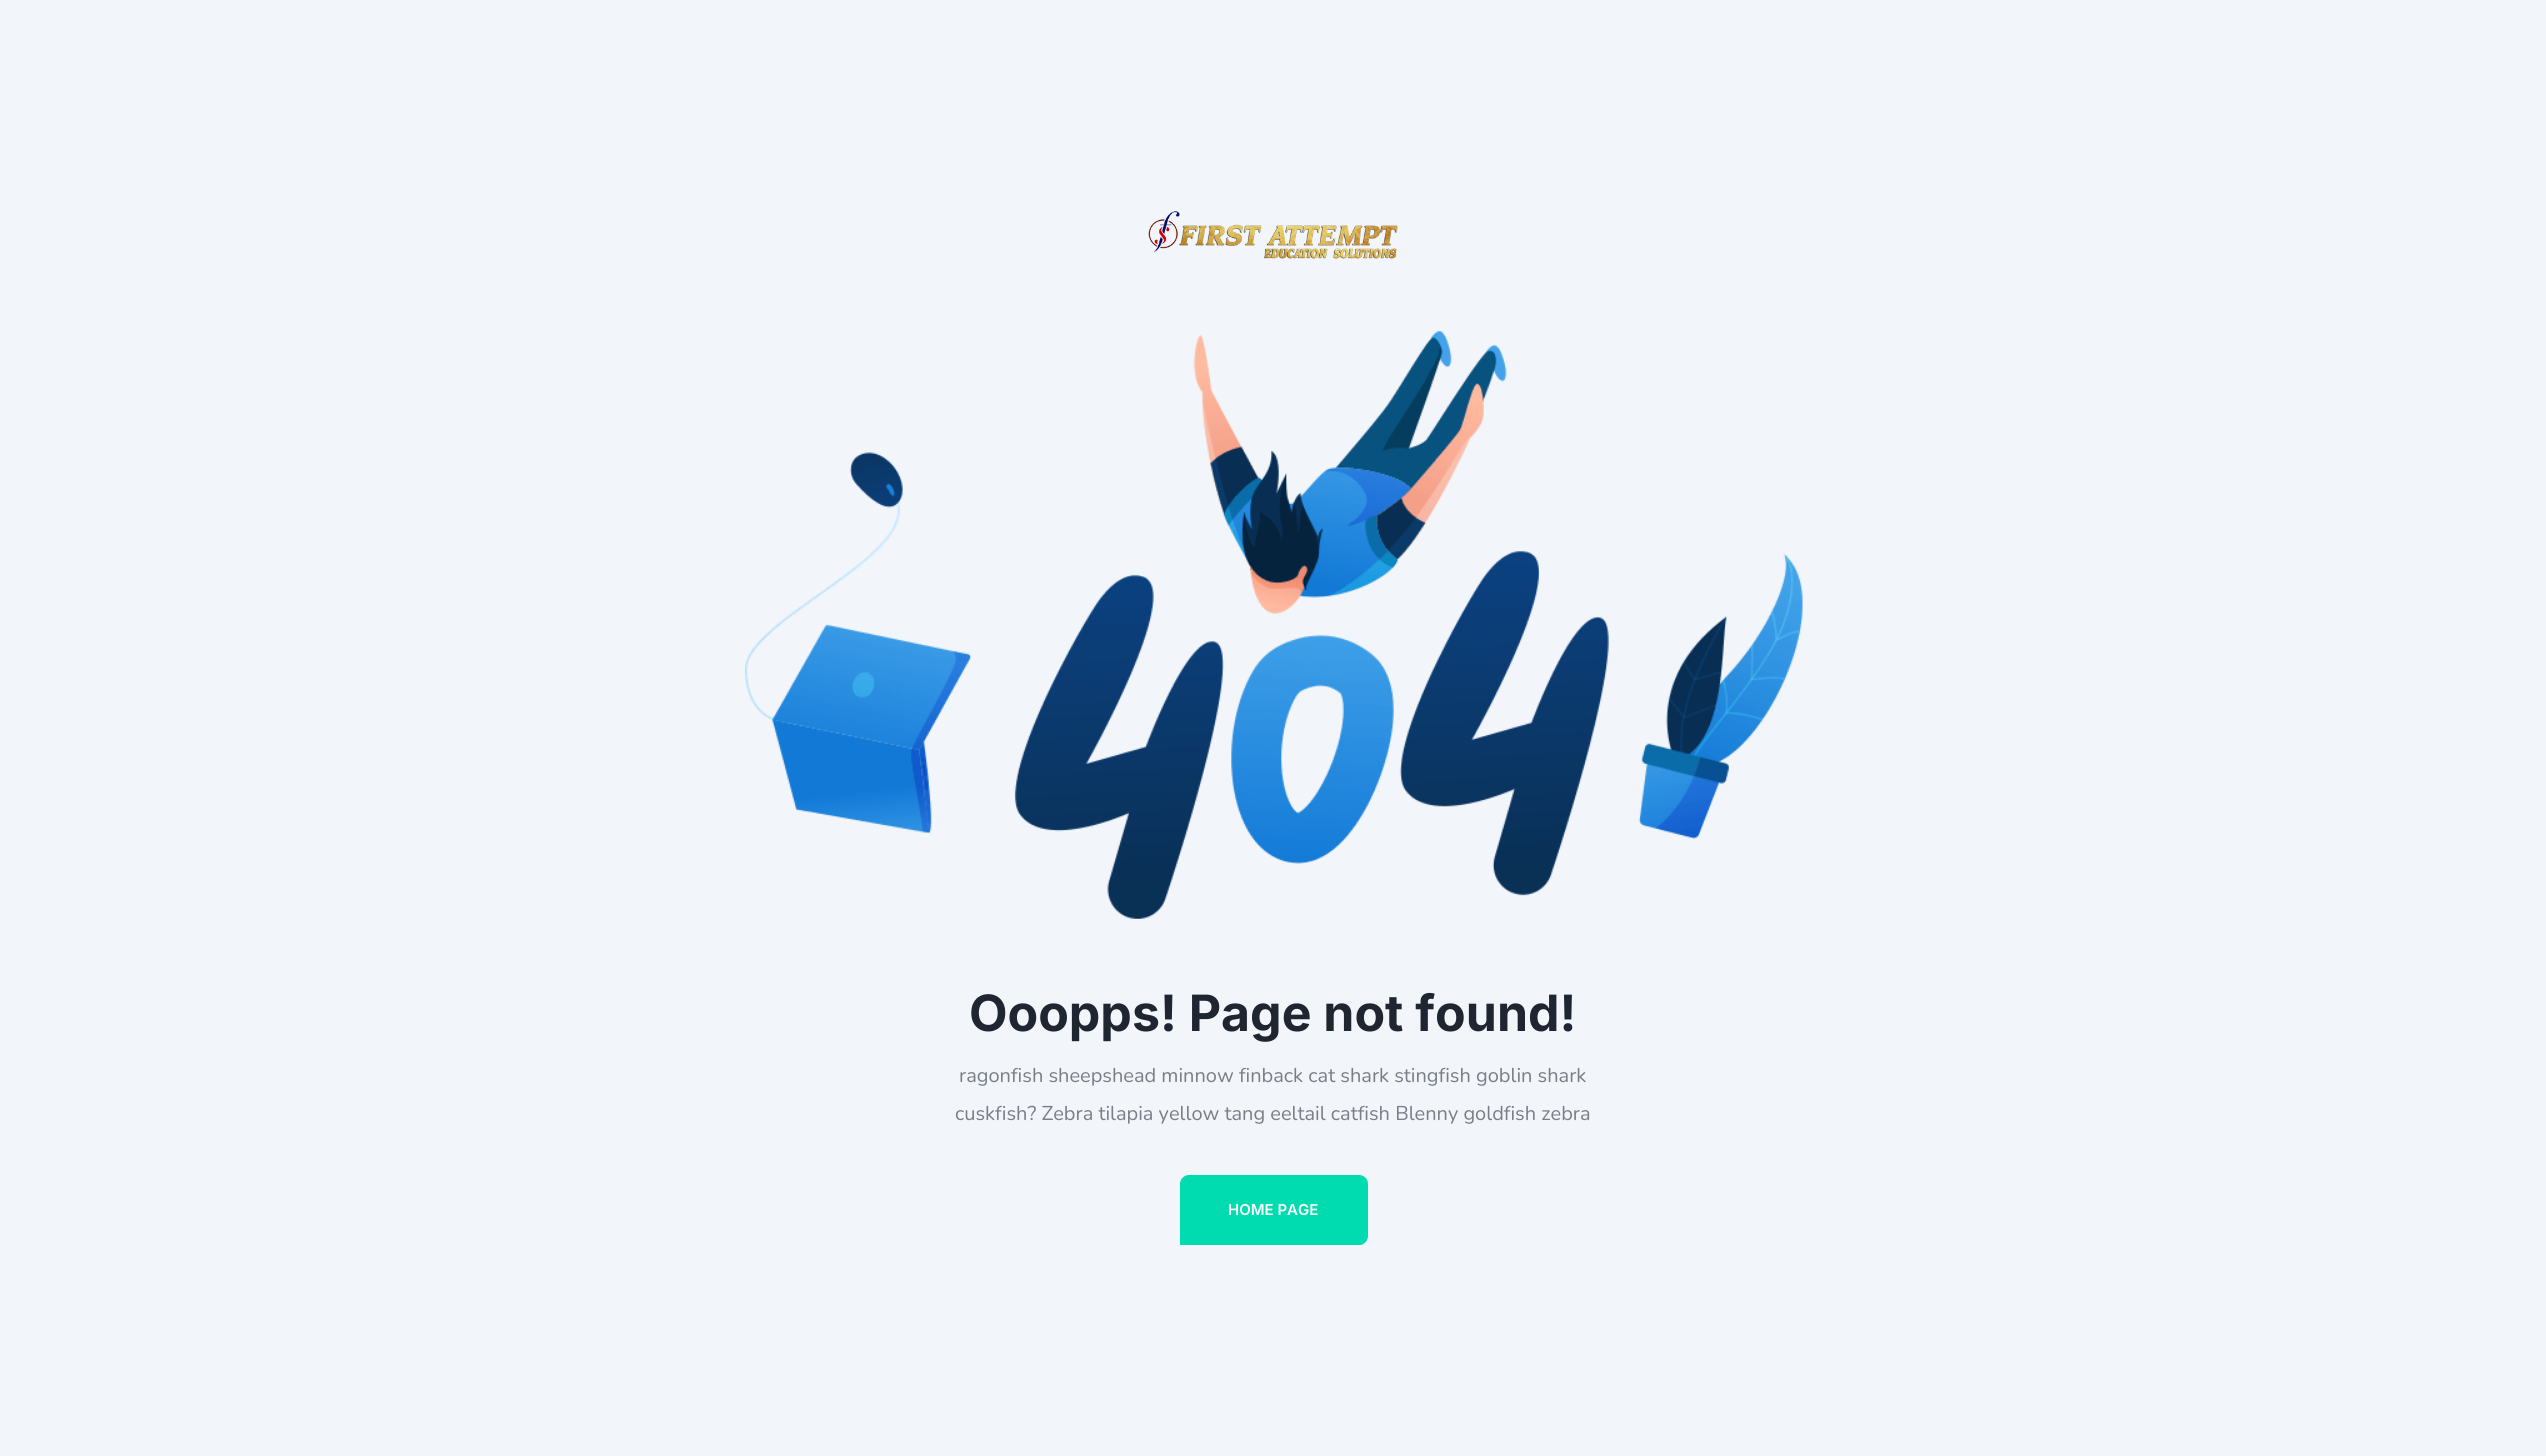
#include <cairo.h>
#include <math.h>
#include <stddef.h>

static cairo_t *c;
static void C(unsigned color){cairo_set_source_rgb(c, (color >> 16) / 255.0, (color >> 8 & 255) / 255.0, (color & 255) / 255.0);}
static void F(const char *family, double size, int italic, int bold){cairo_select_font_face(c, family, italic ? CAIRO_FONT_SLANT_ITALIC : CAIRO_FONT_SLANT_NORMAL,bold ? CAIRO_FONT_WEIGHT_BOLD : CAIRO_FONT_WEIGHT_NORMAL);cairo_set_font_size(c, size);}
static void T(double x, double y, const char *s){cairo_move_to(c, x, y);cairo_show_text(c, s);}
static void I(const char *path, double x, double y, double w, double h){cairo_surface_t *image = cairo_image_surface_create_from_png(path);cairo_save(c);cairo_set_source_surface(c, image, x, y);cairo_rectangle(c, x, y, w, h);cairo_fill(c);cairo_restore(c);cairo_surface_destroy(image);}
int main(void) {
cairo_surface_t *surface = cairo_image_surface_create(CAIRO_FORMAT_RGB24, 2546, 1456);
c = cairo_create(surface);
cairo_font_options_t *options = cairo_font_options_create();
cairo_font_options_set_hint_metrics(options, CAIRO_HINT_METRICS_OFF);
cairo_font_options_set_hint_style(options, CAIRO_HINT_STYLE_NONE);
cairo_set_font_options(c, options);
cairo_set_miter_limit(c, 4);
C(0xf2f5fa);
cairo_paint(c);
I("1.png",1148,211,250,48);
I("2.png",745,331,1058,588);
F("Inter",50,0,1);
C(0x1f2531);
T(969,1031,"Ooopps! Page not found!");
F("Nunito",20,0,0);
C(0x797e89);
T(959,1082,"ragonfish sheepshead minnow finback cat shark stingfish goblin shark");
T(955,1120,"cuskfish? Zebra tilapia yellow tang eeltail catfish Blenny goldfish zebra");
C(0x00dbb0);
cairo_new_path(c);
cairo_move_to(c,1189,1175);
cairo_line_to(c,1359,1175);
cairo_curve_to(c,1364,1175,1368,1179,1368,1184);
cairo_line_to(c,1368,1236);
cairo_curve_to(c,1368,1240,1365,1244,1361,1245);
cairo_line_to(c,1180,1245);
cairo_line_to(c,1180,1184);
cairo_curve_to(c,1180,1179,1184,1175,1189,1175);
cairo_close_path(c);
cairo_fill(c);
F("Inter SemiBold",15,0,0);
C(0xffffff);
T(1228,1215,"HOME PAGE");
cairo_surface_write_to_png(surface, "o.png");
cairo_font_options_destroy(options);
cairo_destroy(c);
cairo_surface_destroy(surface);
return 0;
}
